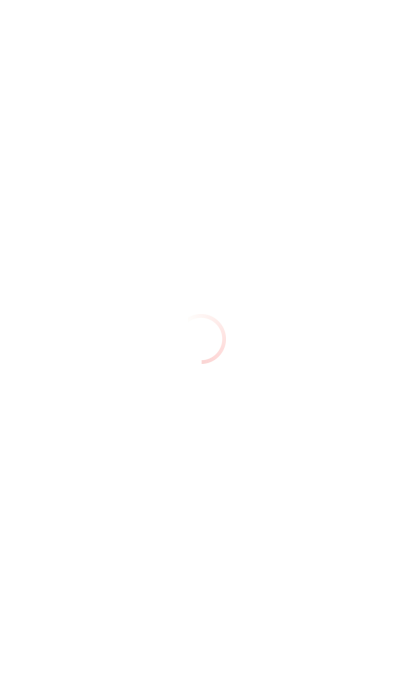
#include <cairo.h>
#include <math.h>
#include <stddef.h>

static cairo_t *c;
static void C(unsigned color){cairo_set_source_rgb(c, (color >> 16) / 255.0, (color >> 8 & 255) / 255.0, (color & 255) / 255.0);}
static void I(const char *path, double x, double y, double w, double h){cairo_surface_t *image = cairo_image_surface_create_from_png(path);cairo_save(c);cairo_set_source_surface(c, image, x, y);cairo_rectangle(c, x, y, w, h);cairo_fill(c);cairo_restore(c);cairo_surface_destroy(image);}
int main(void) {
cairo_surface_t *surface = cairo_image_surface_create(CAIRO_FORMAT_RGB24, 402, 677);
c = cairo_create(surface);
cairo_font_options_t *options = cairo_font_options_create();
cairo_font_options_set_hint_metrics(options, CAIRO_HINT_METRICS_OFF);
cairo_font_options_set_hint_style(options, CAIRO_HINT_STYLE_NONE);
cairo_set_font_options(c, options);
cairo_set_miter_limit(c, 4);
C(0xffffff);
cairo_paint(c);
I("1.png",188,314,38,50);
cairo_surface_write_to_png(surface, "o.png");
cairo_font_options_destroy(options);
cairo_destroy(c);
cairo_surface_destroy(surface);
return 0;
}
